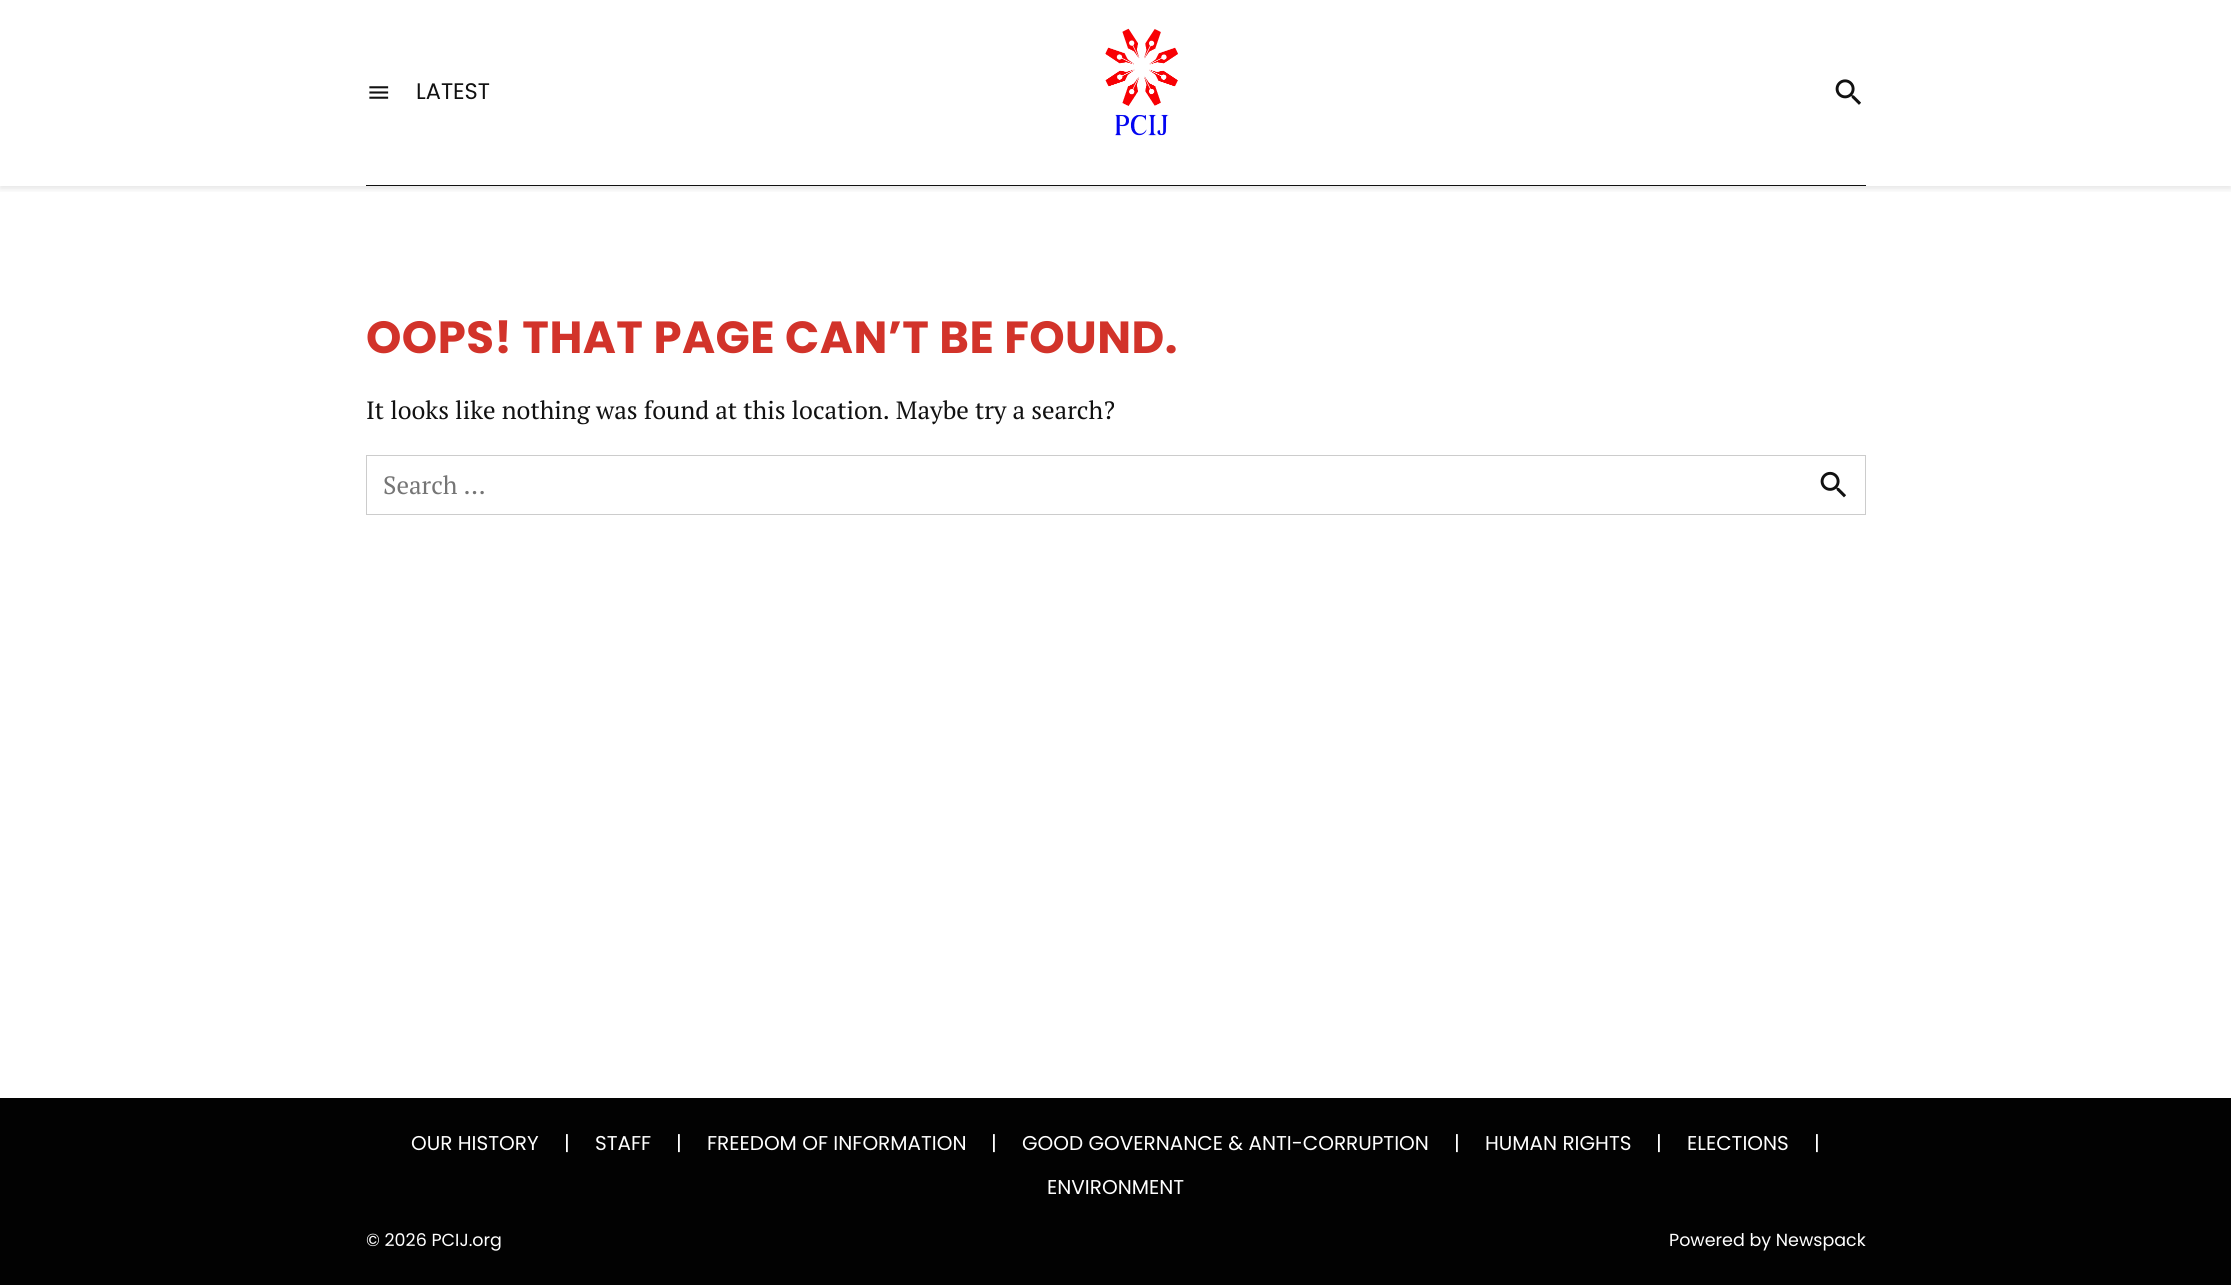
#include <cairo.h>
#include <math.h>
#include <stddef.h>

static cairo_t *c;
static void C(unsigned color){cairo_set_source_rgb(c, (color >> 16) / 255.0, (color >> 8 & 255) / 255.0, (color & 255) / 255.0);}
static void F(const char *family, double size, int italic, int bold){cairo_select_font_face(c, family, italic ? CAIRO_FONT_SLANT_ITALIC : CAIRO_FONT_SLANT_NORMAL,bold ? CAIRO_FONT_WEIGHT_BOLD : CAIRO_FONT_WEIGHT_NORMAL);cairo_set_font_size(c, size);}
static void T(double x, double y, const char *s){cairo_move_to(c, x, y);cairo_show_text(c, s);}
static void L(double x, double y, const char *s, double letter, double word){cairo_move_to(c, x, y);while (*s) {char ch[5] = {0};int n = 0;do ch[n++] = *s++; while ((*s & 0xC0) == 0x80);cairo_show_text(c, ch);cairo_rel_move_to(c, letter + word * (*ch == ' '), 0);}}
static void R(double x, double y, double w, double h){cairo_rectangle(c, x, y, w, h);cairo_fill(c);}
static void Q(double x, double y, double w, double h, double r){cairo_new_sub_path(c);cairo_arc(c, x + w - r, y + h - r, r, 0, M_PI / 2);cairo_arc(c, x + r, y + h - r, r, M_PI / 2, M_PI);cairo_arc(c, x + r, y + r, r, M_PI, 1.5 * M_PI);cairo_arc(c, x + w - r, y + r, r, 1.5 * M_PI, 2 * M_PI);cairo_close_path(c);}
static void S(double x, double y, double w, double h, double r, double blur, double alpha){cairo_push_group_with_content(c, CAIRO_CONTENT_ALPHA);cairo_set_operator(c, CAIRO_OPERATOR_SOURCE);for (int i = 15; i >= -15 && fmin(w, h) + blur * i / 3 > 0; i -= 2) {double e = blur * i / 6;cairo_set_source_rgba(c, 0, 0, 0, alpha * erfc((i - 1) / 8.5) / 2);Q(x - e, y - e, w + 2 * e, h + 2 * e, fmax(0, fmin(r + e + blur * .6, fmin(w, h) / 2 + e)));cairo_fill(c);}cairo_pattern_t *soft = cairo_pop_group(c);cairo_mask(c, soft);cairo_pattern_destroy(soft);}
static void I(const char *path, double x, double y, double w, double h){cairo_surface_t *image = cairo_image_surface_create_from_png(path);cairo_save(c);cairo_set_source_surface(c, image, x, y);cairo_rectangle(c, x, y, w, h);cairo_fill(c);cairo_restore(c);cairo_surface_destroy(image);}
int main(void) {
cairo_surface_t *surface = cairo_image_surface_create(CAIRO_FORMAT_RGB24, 2231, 1285);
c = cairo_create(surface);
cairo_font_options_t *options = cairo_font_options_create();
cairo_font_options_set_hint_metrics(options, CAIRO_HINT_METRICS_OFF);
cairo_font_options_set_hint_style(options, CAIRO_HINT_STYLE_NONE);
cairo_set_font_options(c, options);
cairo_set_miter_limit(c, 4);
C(0xffffff);
cairo_paint(c);
cairo_save(c);
cairo_rectangle(c,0,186,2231,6);
cairo_clip(c);
C(0x000000);
S(0,3,2231,186,0,3,.1);
cairo_restore(c);
C(0x111111);
R(366,185,1500,1);
I("1.png",369,86,20,13);
F("Poppins",22.5,0,0);
T(416,99,"LATEST");
I("2.png",1105,28,73,108);
I("3.png",1835,79,26,26);
F("Poppins",45,0,1);
C(0xd2332a);
L(366,353,"OOPS! THAT PAGE CAN’T BE FOUND.",.45,0);
F("PT Serif",25,0,0);
C(0x111111);
T(366,419,"It looks like nothing was found at this location. Maybe try a search?");
cairo_rectangle(c,366.5,455.5,1499,59);
C(0xcccccc);
cairo_set_line_width(c,1);
cairo_stroke(c);
C(0x757575);
T(383,494,"Search …");
I("4.png",1820,471,26,27);
C(0x020202);
R(0,1098,2231,187);
F("Poppins",20,0,0);
C(0xffffff);
T(411,1150,"OUR HISTORY");
T(564,1150,"|");
T(595,1150,"STAFF");
T(676,1150,"|");
T(707,1150,"FREEDOM OF INFORMATION");
T(991,1150,"|");
T(1022,1150,"GOOD GOVERNANCE & ANTI-CORRUPTION");
T(1454,1150,"|");
T(1485,1150,"HUMAN RIGHTS");
T(1656,1150,"|");
T(1687,1150,"ELECTIONS");
T(1814,1150,"|");
T(1047,1194,"ENVIRONMENT");
F("Poppins",17.5,0,0);
T(366,1246,"© 2026 PCIJ.org");
T(1669,1246,"Powered by Newspack");
cairo_surface_write_to_png(surface, "o.png");
cairo_font_options_destroy(options);
cairo_destroy(c);
cairo_surface_destroy(surface);
return 0;
}
